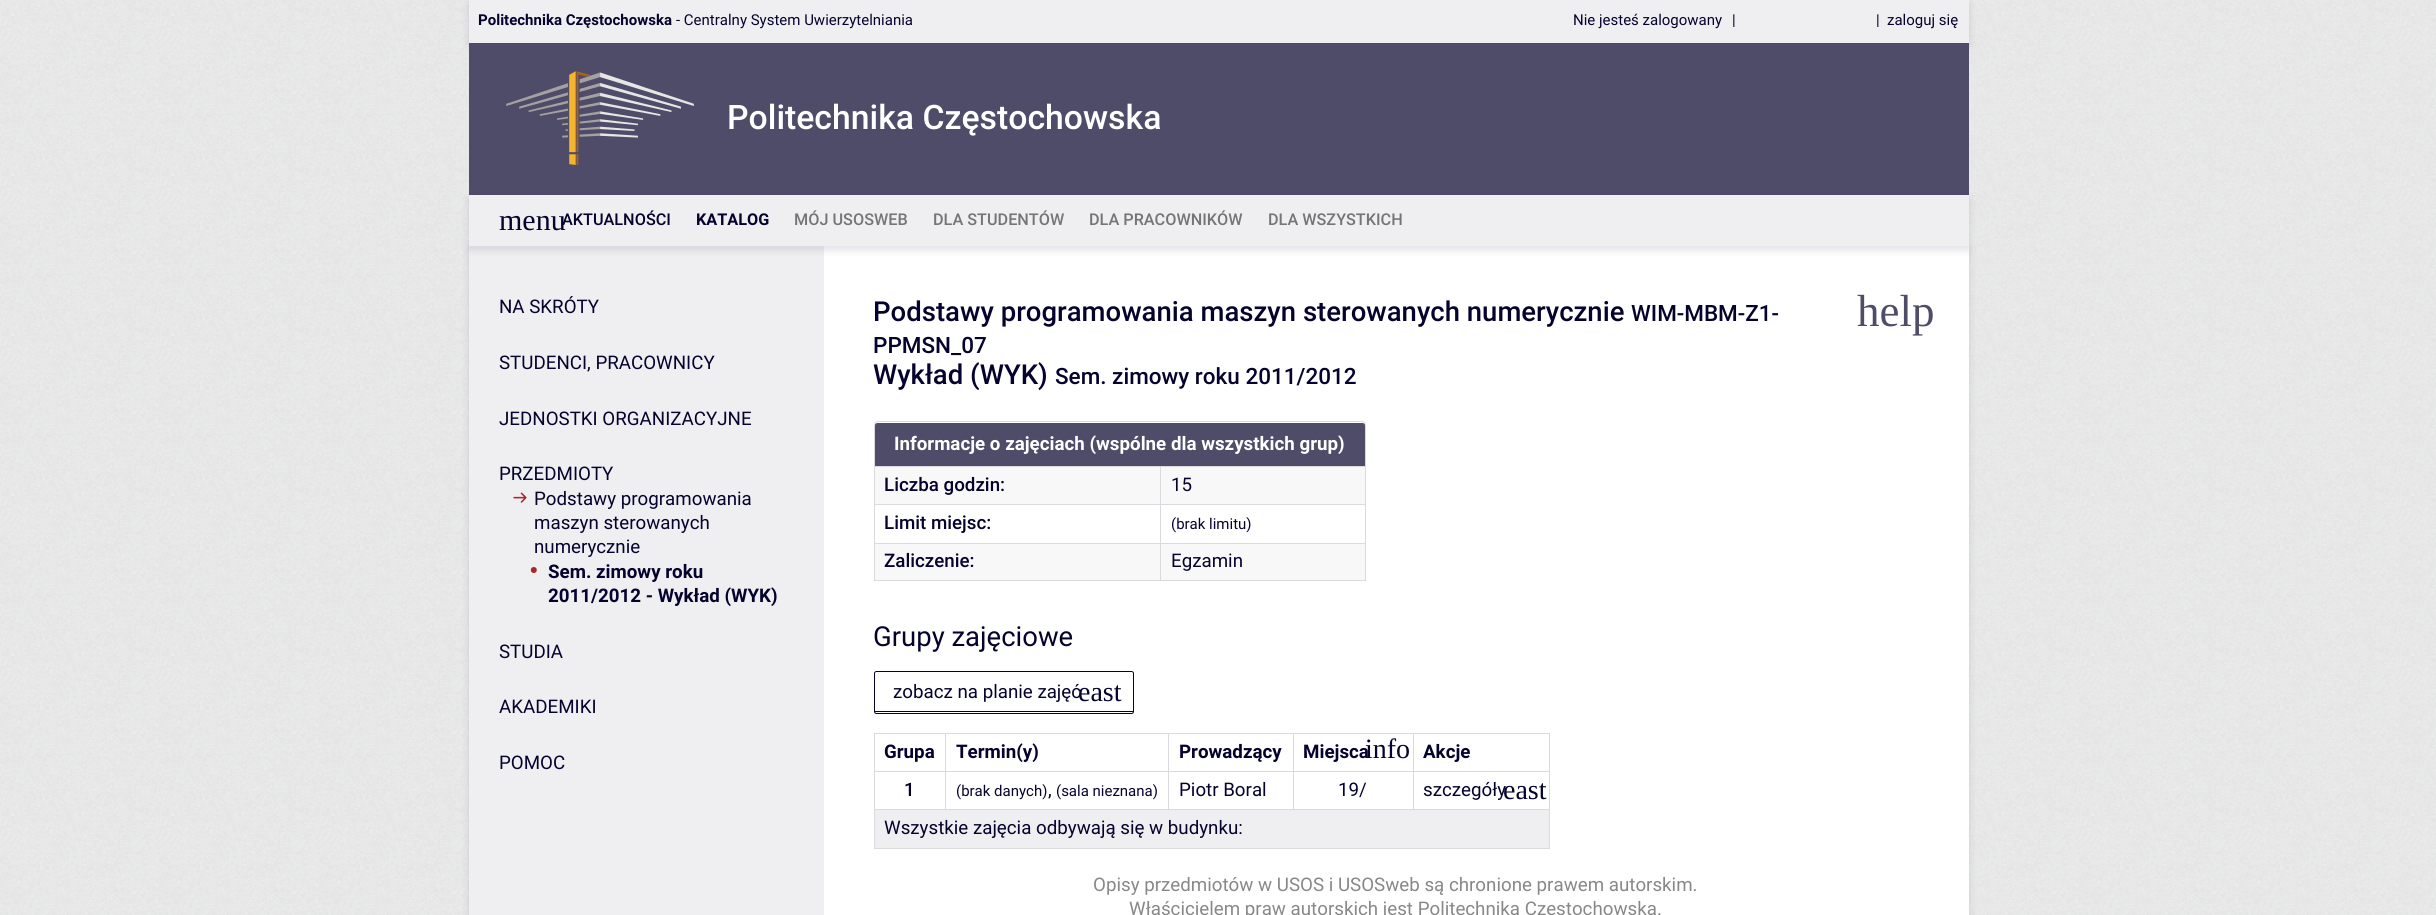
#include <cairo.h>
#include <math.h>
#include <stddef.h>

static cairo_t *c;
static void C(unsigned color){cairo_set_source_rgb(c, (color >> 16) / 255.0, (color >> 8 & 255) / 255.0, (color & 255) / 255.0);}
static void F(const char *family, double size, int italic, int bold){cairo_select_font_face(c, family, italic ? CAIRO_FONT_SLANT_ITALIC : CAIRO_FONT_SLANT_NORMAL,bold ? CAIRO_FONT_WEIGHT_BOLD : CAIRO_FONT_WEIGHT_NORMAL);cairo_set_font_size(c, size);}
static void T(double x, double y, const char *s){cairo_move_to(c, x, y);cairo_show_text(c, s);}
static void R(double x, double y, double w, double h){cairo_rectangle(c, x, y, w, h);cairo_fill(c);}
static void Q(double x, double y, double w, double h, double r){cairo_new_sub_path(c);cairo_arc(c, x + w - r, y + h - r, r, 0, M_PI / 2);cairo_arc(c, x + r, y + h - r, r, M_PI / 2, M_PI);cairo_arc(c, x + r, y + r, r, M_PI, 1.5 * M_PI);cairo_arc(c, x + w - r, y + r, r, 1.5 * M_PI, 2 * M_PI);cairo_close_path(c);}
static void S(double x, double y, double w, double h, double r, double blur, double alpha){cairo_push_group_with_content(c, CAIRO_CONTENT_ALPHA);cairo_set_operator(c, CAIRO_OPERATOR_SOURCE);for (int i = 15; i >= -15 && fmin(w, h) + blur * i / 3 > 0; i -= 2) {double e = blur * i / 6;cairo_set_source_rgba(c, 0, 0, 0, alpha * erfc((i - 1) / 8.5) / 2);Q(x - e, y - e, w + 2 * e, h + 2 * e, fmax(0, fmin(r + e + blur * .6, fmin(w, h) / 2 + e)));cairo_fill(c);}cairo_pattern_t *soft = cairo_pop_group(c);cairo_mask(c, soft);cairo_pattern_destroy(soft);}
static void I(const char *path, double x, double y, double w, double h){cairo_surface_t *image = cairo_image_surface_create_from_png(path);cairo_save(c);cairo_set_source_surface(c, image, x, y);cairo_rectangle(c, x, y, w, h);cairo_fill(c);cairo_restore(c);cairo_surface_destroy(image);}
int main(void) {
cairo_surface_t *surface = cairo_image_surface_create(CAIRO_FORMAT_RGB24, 2436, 915);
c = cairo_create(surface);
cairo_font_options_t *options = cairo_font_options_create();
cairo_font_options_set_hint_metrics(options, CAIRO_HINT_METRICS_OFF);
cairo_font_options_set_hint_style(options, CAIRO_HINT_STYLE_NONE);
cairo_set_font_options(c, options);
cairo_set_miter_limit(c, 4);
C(0xffffff);
cairo_paint(c);
I("1.png",0,0,2436,915);
C(0x060633);
S(469,4,1500,42,0,4,.12);
C(0xefeff1);
R(469,0,1500,43);
F("Roboto",15,0,1);
C(0x06022e);
T(478,25,"Politechnika Częstochowska");
F("Roboto",15,0,0);
T(676,25,"- Centralny System Uwierzytelniania");
T(1573,25,"Nie jesteś zalogowany");
T(1732,25,"|");
T(1876,25,"|");
T(1887,25,"zaloguj się");
C(0x4f4c6a);
R(469,43,1500,152);
I("2.png",506,71,188,94);
F("Roboto Medium",33.75,0,0);
C(0xffffff);
T(727,129,"Politechnika Częstochowska");
C(0x060633);
S(469,250,1500,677,0,4,.12);
C(0xffffff);
R(824,246,1145,669);
C(0xefeff1);
R(469,246,355,669);
C(0x060633);
S(469,199,1500,51,0,4,.12);
C(0xefeff1);
R(469,195,1500,51);
F("Liberation Serif",30,0,0);
C(0x06022e);
T(499,230,"menu");
F("Roboto Medium",16.25,0,0);
T(562,225,"AKTUALNOŚCI");
F("Roboto",16.25,0,1);
T(696,225,"KATALOG");
F("Roboto Medium",16.25,0,0);
C(0x757575);
T(794,225,"MÓJ USOSWEB");
T(933,225,"DLA STUDENTÓW");
T(1089,225,"DLA PRACOWNIKÓW");
T(1268,225,"DLA WSZYSTKICH");
F("Roboto",18.75,0,0);
C(0x06022e);
T(499,313,"NA SKRÓTY");
T(499,369,"STUDENCI, PRACOWNICY");
T(499,425,"JEDNOSTKI ORGANIZACYJNE");
T(499,480,"PRZEDMIOTY");
I("3.png",513,492,14,11);
T(534,505,"Podstawy programowania");
T(534,529,"maszyn sterowanych");
T(534,553,"numerycznie");
C(0xa62929);
cairo_new_path(c);
cairo_arc(c,533.8,570,3,0,2 * M_PI);
cairo_fill(c);
F("Roboto",18.75,0,1);
C(0x06022e);
T(548,578,"Sem. zimowy roku");
T(548,602,"2011/2012 - Wykład (WYK)");
F("Roboto",18.75,0,0);
T(499,658,"STUDIA");
T(499,713,"AKADEMIKI");
T(499,769,"POMOC");
F("Roboto Medium",27.5,0,0);
T(873,321,"Podstawy programowania maszyn sterowanych numerycznie");
F("Roboto Medium",22.5,0,0);
T(1631,321,"WIM-MBM-Z1-");
T(873,353,"PPMSN_07");
F("Roboto Medium",27.5,0,0);
T(873,384,"Wykład (WYK)");
F("Roboto Medium",22.5,0,0);
T(1055,384,"Sem. zimowy roku 2011/2012");
F("Liberation Serif",45,0,0);
C(0x4f4c6a);
T(1857,326,"help");
cairo_new_path(c);
cairo_move_to(c,878,421.5);
cairo_line_to(c,1362,421.5);
cairo_curve_to(c,1364,421.5,1365.5,423,1365.5,425);
cairo_line_to(c,1365.5,578.5);
cairo_curve_to(c,1365.5,579.5,1364.5,580.5,1363.5,580.5);
cairo_line_to(c,876.5,580.5);
cairo_curve_to(c,875.5,580.5,874.5,579.5,874.5,578.5);
cairo_line_to(c,874.5,425);
cairo_curve_to(c,874.5,423,876,421.5,878,421.5);
cairo_close_path(c);
C(0xdadade);
cairo_set_line_width(c,1);
cairo_stroke(c);
C(0x4f4c6a);
cairo_new_path(c);
cairo_move_to(c,877.5,423);
cairo_line_to(c,1362.5,423);
cairo_curve_to(c,1364,423,1365,424,1365,425.5);
cairo_line_to(c,1365,468);
cairo_line_to(c,875,468);
cairo_line_to(c,875,425.5);
cairo_curve_to(c,875,424,876,423,877.5,423);
cairo_close_path(c);
cairo_fill(c);
F("Roboto",18.75,0,1);
C(0xffffff);
T(894,450,"Informacje o zajęciach (wspólne dla wszystkich grup)");
C(0xf8f8f8);
R(875,467,285,37);
C(0xdadade);
R(1160,466,206,1);
R(1160,504,206,1);
R(1160,543,206,1);
R(1160,543,1,38);
R(874,543,287,1);
R(1160,504,1,40);
R(874,504,287,1);
R(1160,466,1,39);
R(874,466,287,1);
F("Roboto Medium",18.75,0,0);
C(0x06022e);
T(884,491,"Liczba godzin:");
C(0xf8f8f8);
R(1161,467,204,37);
F("Roboto",18.75,0,0);
C(0x06022e);
T(1171,491,"15");
F("Roboto Medium",18.75,0,0);
T(884,529,"Limit miejsc:");
F("Roboto",15,0,0);
T(1171,529,"(brak limitu)");
C(0xf8f8f8);
R(875,544,285,36);
C(0xdadade);
R(874,580,2,1);
R(874,579,1,2);
F("Roboto Medium",18.75,0,0);
C(0x06022e);
T(884,567,"Zaliczenie:");
C(0xf8f8f8);
R(1161,544,204,36);
C(0xdadade);
R(1365,579,1,2);
R(1364,580,2,1);
F("Roboto",18.75,0,0);
C(0x06022e);
T(1171,567,"Egzamin");
F("Roboto",27.5,0,0);
T(873,646,"Grupy zajęciowe");
Q(874.5,671.5,259,42,2);
cairo_stroke(c);
R(875,711,258,1);
F("Roboto",18.75,0,0);
T(893,698,"zobacz na planie zajęć");
F("Liberation Serif",28,0,0);
T(1078,701,"east");
C(0xdadade);
R(1413,733,137,1);
R(1413,771,137,1);
R(874,809,676,1);
R(1413,771,1,39);
R(1293,771,121,1);
R(1413,733,1,40);
R(1293,733,121,1);
R(1293,771,1,39);
R(1168,771,126,1);
R(1293,733,1,40);
R(1168,733,126,1);
R(1168,771,1,39);
R(945,771,224,1);
R(1168,733,1,40);
R(945,733,224,1);
R(945,771,1,39);
R(874,771,72,1);
R(945,733,1,40);
R(874,733,72,1);
R(1549,809,1,40);
R(874,848,676,1);
R(874,809,1,40);
R(874,771,1,39);
R(874,733,1,40);
F("Roboto",18.75,0,1);
C(0x06022e);
T(884,758,"Grupa");
T(956,758,"Termin(y)");
T(1179,758,"Prowadzący");
T(1303,758,"Miejsca");
F("Liberation Serif",28,0,0);
T(1365,758,"info");
C(0xdadade);
R(1549,771,1,39);
R(1549,733,1,40);
F("Roboto",18.75,0,1);
C(0x06022e);
T(1423,758,"Akcje");
F("Roboto Medium",18.75,0,0);
T(904,796,"1");
F("Roboto",15,0,0);
T(956,796,"(brak danych)");
F("Roboto",18.75,0,0);
T(1048,796,",");
F("Roboto",15,0,0);
T(1056,796,"(sala nieznana)");
F("Roboto",18.75,0,0);
T(1179,796,"Piotr Boral");
T(1338,796,"19/");
T(1423,796,"szczegóły");
F("Liberation Serif",28,0,0);
T(1503,799,"east");
C(0xefeff1);
R(875,810,674,38);
F("Roboto",18.75,0,0);
C(0x06022e);
T(884,834,"Wszystkie zajęcia odbywają się w budynku:");
C(0x888888);
T(1093,891,"Opisy przedmiotów w USOS i USOSweb są chronione prawem autorskim.");
T(1129,915,"Właścicielem praw autorskich jest Politechnika Częstochowska.");
cairo_surface_write_to_png(surface, "o.png");
cairo_font_options_destroy(options);
cairo_destroy(c);
cairo_surface_destroy(surface);
return 0;
}
